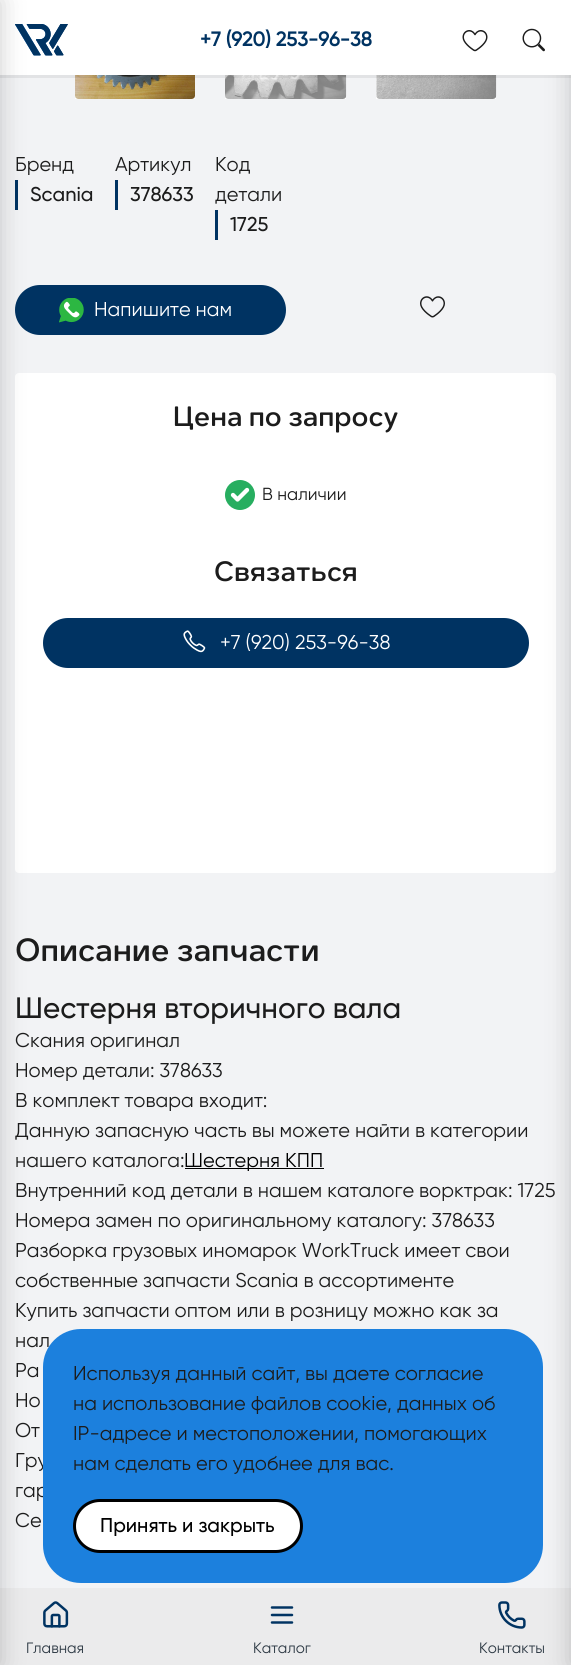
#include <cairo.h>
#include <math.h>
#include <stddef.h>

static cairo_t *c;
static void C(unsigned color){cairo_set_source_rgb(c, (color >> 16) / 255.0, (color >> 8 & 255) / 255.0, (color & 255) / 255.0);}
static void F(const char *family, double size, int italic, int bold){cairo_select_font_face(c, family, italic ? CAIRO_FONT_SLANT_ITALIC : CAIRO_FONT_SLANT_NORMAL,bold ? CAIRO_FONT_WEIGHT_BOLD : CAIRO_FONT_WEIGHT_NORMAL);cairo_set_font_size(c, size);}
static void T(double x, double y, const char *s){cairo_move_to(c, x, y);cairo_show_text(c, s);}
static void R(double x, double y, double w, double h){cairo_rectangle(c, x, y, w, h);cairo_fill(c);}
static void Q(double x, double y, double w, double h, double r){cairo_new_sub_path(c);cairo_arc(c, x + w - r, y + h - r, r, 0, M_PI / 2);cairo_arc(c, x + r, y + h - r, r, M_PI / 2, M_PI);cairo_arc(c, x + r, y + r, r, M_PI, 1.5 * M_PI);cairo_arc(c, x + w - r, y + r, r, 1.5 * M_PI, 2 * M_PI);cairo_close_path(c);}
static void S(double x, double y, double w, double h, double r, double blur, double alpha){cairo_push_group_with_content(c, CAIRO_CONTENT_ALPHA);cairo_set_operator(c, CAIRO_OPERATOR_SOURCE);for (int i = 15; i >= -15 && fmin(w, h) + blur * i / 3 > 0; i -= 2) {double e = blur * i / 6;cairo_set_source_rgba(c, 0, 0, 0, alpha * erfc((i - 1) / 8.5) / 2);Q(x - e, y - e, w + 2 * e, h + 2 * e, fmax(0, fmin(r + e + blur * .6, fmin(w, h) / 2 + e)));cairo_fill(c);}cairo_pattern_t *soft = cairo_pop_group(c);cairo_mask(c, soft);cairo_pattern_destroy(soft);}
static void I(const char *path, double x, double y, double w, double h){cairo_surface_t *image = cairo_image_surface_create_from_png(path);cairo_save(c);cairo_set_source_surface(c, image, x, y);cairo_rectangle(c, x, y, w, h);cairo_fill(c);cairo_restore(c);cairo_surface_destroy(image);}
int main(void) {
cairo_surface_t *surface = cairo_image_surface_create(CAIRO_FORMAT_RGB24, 571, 1665);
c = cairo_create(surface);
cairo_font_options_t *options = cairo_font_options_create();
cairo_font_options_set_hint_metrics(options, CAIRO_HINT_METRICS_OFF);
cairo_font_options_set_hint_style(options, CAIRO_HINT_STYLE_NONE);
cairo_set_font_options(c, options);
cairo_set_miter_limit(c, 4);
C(0xf2f3f5);
cairo_paint(c);
C(0xffffff);
Q(15,373,541,500,4);
cairo_fill(c);
C(0xebebec);
R(0,1588,571,77);
C(0x000000);
S(571,0,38,1665,0,12.5,.2);
C(0xffffff);
R(75,96,120,3);
I("4.png",75,75,120,24);
R(225,75,121,24);
I("5.png",225,75,122,24);
R(376,75,120,24);
I("6.png",376,75,121,24);
cairo_set_source_rgba(c,0.345,0.345,0.345,0.1);
R(0,75,571,3);
C(0xffffff);
R(0,0,571,75);
I("1.png",15,24,53,32);
C(0x003362);
R(15,180,3,30);
Q(15,285,271,50,25);
cairo_fill(c);
C(0x000000);
S(-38,0,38,1665,0,12.5,.2);
F("Gilroy",20,0,1);
C(0x003362);
T(200,46,"+7 (920) 253-96-38");
I("2.png",462,30,26,22);
I("3.png",522,28,23,24);
F("Gilroy",20,0,0);
C(0x1c1c1c);
T(15,1347,"нал");
T(15,1467,"Гру");
T(15,1497,"гар");
C(0x1c80dd);
Q(43,1329,500,254,38);
cairo_fill(c);
C(0x1c1c1c);
T(73,1380,"Используя данный сайт, вы даете согласие");
T(73,1410,"на использование файлов cookie, данных об");
T(73,1440,"IP-адресе и местоположении, помогающих");
T(73,1470,"нам сделать его удобнее для вас.");
C(0xffffff);
Q(74.5,1500.5,227,51,25.5);
cairo_fill_preserve(c);
C(0x000000);
cairo_set_line_width(c,3);
cairo_stroke(c);
F("Gilroy Medium",20,0,0);
T(100,1532,"Принять и закрыть");
F("Gilroy",20,0,0);
C(0x1c1c1c);
T(15,171,"Бренд");
F("Gilroy Medium",20,0,0);
T(30,201,"Scania");
F("Gilroy",20,0,0);
T(115,171,"Артикул");
C(0x003362);
R(115,180,3,30);
F("Gilroy Medium",20,0,0);
C(0x1c1c1c);
T(130,201,"378633");
F("Gilroy",20,0,0);
T(215,171,"Код");
T(215,201,"детали");
C(0x003362);
R(215,210,3,30);
F("Gilroy Medium",20,0,0);
C(0x1c1c1c);
T(230,231,"1725");
I("7.png",59,298,25,25);
F("Gilroy",20,0,0);
C(0xffffff);
T(94,316,"Напишите нам");
I("8.png",420,296,25,22);
F("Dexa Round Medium",27.25,0,0);
C(0x1c1c1c);
T(173,426,"Цена по запросу");
C(0x27ae60);
cairo_new_path(c);
cairo_arc(c,240,495,15,0,2 * M_PI);
cairo_fill(c);
cairo_new_path(c);
cairo_move_to(c,247,490);
cairo_line_to(c,237.5,499.5);
cairo_line_to(c,233,495);
C(0xffffff);
cairo_set_line_width(c,4.3);
cairo_set_line_cap(c,CAIRO_LINE_CAP_ROUND);
cairo_set_line_join(c,CAIRO_LINE_JOIN_ROUND);
cairo_stroke(c);
F("Gilroy",17.5,0,0);
C(0x1c1c1c);
T(262,500,"В наличии");
F("Dexa Round Medium",27.25,0,0);
T(214,581,"Связаться");
C(0x003362);
Q(43,618,486,50,25);
cairo_fill(c);
I("9.png",183,630,23,23);
F("Gilroy",20,0,0);
C(0xffffff);
T(220,649,"+7 (920) 253-96-38");
F("Dexa Round Medium",31.25,0,0);
C(0x1c1c1c);
T(15,961,"Описание запчасти");
F("Gilroy Medium",29.5,0,0);
T(15,1018,"Шестерня вторичного вала");
F("Gilroy",20,0,0);
T(15,1047,"Скания оригинал");
T(15,1077,"Номер детали: 378633");
T(15,1107,"В комплект товара входит:");
T(15,1137,"Данную запасную часть вы можете найти в категории");
T(15,1167,"нашего каталога:");
C(0x000000);
R(185,1168,139,1);
T(184,1167,"Шестерня КПП");
C(0x1c1c1c);
T(15,1197,"Внутренний код детали в нашем каталоге ворктрак: 1725");
T(15,1227,"Номера замен по оригинальному каталогу: 378633");
T(15,1257,"Разборка грузовых иномарок WorkTruck имеет свои");
T(15,1287,"собственные запчасти Scania в ассортименте");
T(15,1317,"Купить запчасти оптом или в розницу можно как за");
T(15,1377,"Ра");
T(15,1407,"Но");
T(15,1437,"От");
T(15,1527,"Се");
I("10.png",43,1601,26,27);
F("Gilroy",15,0,0);
C(0x2d3944);
T(26,1653,"Главная");
cairo_new_path(c);
cairo_move_to(c,272,1615);
cairo_line_to(c,292,1615);
cairo_move_to(c,272,1607.5);
cairo_line_to(c,292,1607.5);
cairo_move_to(c,272,1622.5);
cairo_line_to(c,292,1622.5);
C(0x003362);
cairo_set_line_width(c,2.5);
cairo_stroke(c);
C(0x2d3944);
T(253,1653,"Каталог");
I("11.png",498,1601,28,28);
T(479,1653,"Контакты");
cairo_surface_write_to_png(surface, "o.png");
cairo_font_options_destroy(options);
cairo_destroy(c);
cairo_surface_destroy(surface);
return 0;
}
